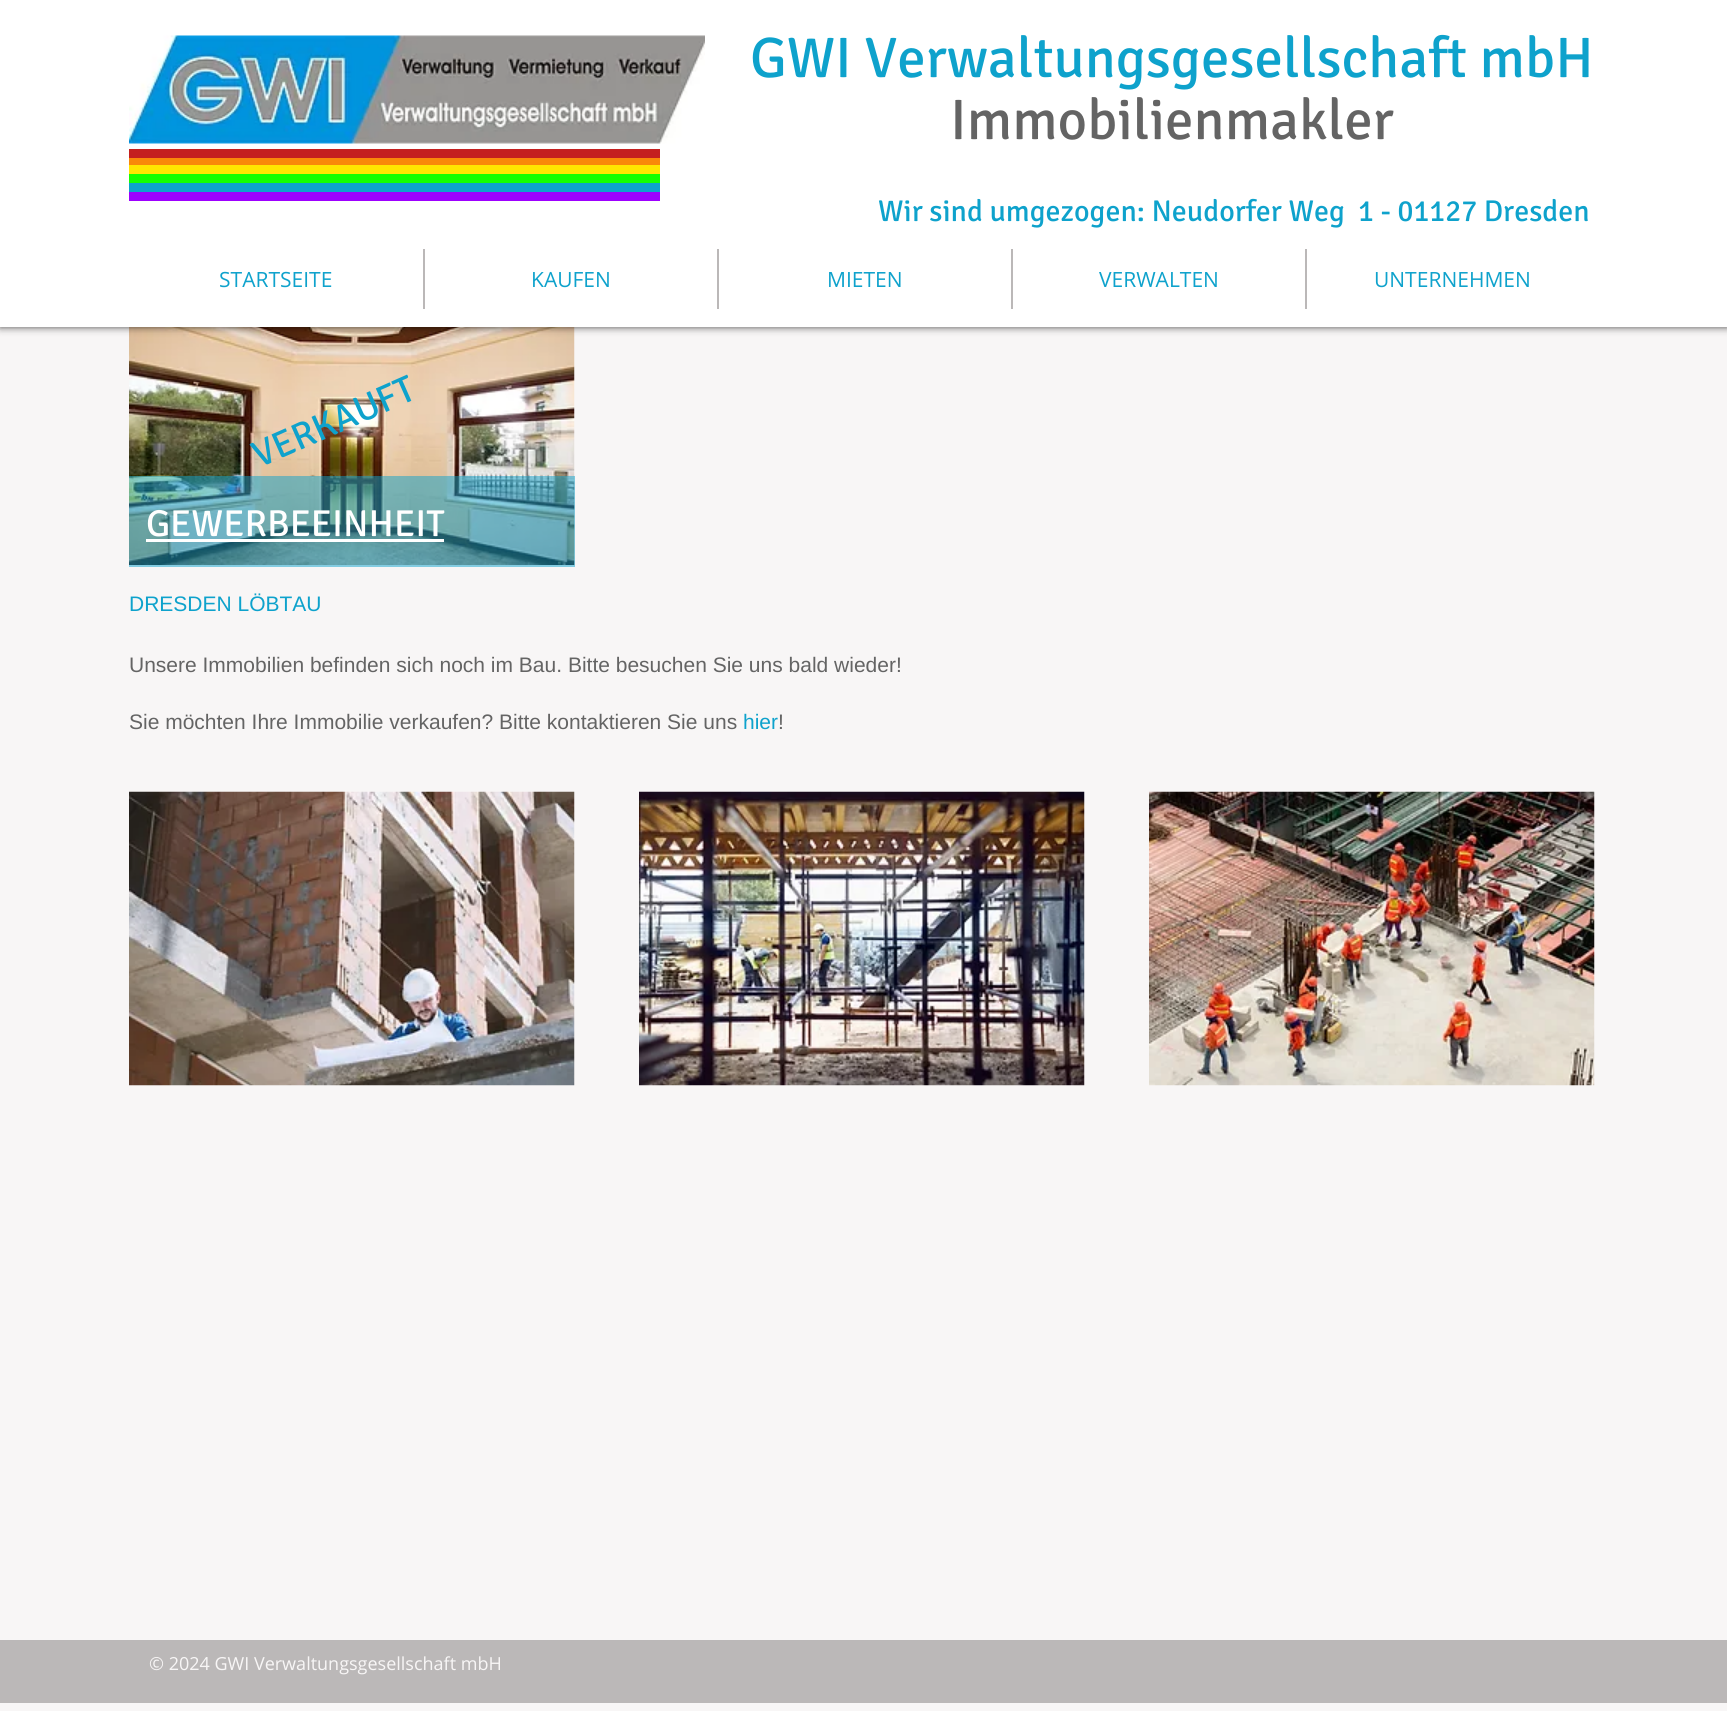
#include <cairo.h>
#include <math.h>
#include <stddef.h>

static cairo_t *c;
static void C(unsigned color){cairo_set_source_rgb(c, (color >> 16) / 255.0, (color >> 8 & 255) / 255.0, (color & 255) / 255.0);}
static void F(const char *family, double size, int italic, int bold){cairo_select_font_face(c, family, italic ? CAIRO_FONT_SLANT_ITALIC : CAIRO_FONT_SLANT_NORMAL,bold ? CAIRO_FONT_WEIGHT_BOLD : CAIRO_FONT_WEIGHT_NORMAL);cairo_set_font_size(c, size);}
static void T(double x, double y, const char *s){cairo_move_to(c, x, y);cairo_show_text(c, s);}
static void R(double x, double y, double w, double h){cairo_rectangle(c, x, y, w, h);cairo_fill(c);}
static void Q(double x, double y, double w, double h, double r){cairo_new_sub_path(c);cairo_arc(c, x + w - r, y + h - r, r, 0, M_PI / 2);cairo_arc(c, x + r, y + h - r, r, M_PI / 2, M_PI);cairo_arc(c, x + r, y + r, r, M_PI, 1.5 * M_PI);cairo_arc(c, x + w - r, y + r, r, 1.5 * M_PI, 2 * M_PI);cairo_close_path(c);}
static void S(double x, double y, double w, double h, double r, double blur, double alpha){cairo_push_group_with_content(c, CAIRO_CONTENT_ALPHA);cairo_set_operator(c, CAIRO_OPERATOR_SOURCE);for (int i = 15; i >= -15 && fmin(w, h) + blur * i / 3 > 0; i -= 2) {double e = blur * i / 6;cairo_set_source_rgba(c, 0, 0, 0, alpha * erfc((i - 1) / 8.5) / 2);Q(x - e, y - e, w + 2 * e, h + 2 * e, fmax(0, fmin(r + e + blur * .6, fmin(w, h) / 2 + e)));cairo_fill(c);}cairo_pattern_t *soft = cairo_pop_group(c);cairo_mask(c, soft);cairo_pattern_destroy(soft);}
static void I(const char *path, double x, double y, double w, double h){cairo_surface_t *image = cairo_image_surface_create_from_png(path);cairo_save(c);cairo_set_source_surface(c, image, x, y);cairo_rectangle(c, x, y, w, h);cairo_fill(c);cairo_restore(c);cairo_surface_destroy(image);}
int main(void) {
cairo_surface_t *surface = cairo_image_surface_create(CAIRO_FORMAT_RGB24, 1727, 1711);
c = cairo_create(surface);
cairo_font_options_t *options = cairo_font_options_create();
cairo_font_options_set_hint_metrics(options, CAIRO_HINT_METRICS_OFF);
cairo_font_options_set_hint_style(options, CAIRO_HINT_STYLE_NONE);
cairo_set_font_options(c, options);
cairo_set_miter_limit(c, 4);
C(0xf8f6f6);
cairo_paint(c);
I("2.png",129,327,446,238);
C(0x000000);
S(0,0,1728,327,0,4,.7);
C(0xffffff);
R(0,0,1727,327);
I("1.png",129,35,576,109);
F("Signika",57,0,0);
C(0x0ea2cc);
T(750,77,"GWI Verwaltungsgesellschaft mbH");
C(0x646464);
T(950,139,"Immobilienmakler");
C(0xc41f1f);
R(129,149,531,9);
C(0xf98909);
R(129,158,531,7);
C(0xffe600);
R(129,165,531,9);
C(0x15ff00);
R(129,174,531,9);
C(0x0ea2cc);
R(129,183,531,9);
C(0x9d00ff);
R(129,192,531,9);
F("Signika",30,0,0);
C(0x0ea2cc);
T(878,221,"Wir sind umgezogen: Neudorfer Weg  1 - 01127 Dresden");
F("Open Sans",21,0,0);
T(219,287,"STARTSEITE");
C(0xbbb8b8);
R(423,249,2,60);
C(0x0ea2cc);
T(531,287,"KAUFEN");
C(0xbbb8b8);
R(717,249,2,60);
C(0x0ea2cc);
T(827,287,"MIETEN");
C(0xbbb8b8);
R(1011,249,2,60);
C(0x0ea2cc);
T(1099,287,"VERWALTEN");
C(0xbbb8b8);
R(1305,249,2,60);
C(0x0ea2cc);
T(1374,287,"UNTERNEHMEN");
F("Signika",37.5,0,0);
cairo_save(c);
cairo_translate(c,259,468);
cairo_rotate(c,-23.8 * M_PI / 180);
T(0,0,"VERKAUFT");
cairo_restore(c);
cairo_set_source_rgba(c,0.055,0.635,0.8,0.5);
R(129,476,446,91);
C(0xffffff);
T(146,536,"GEWERBEEINHEIT");
R(146,539,298,3);
F("Liberation Sans",21,0,0);
C(0x0ea2cc);
T(129,611,"DRESDEN LÖBTAU");
C(0x646464);
T(129,672,"Unsere Immobilien befinden sich noch im Bau. Bitte besuchen Sie uns bald wieder!");
T(129,729,"Sie möchten Ihre Immobilie verkaufen? Bitte kontaktieren Sie uns");
C(0x0ea2cc);
T(743,729,"hier");
C(0x646464);
T(778,729,"!");
I("3.png",129,791,446,295);
I("4.png",639,791,446,295);
I("5.png",1149,791,446,295);
C(0xbbb8b8);
R(0,1640,1727,63);
F("Open Sans",18,0,0);
C(0xf8f6f6);
T(149,1670,"© 2024 GWI Verwaltungsgesellschaft mbH");
cairo_surface_write_to_png(surface, "o.png");
cairo_font_options_destroy(options);
cairo_destroy(c);
cairo_surface_destroy(surface);
return 0;
}
